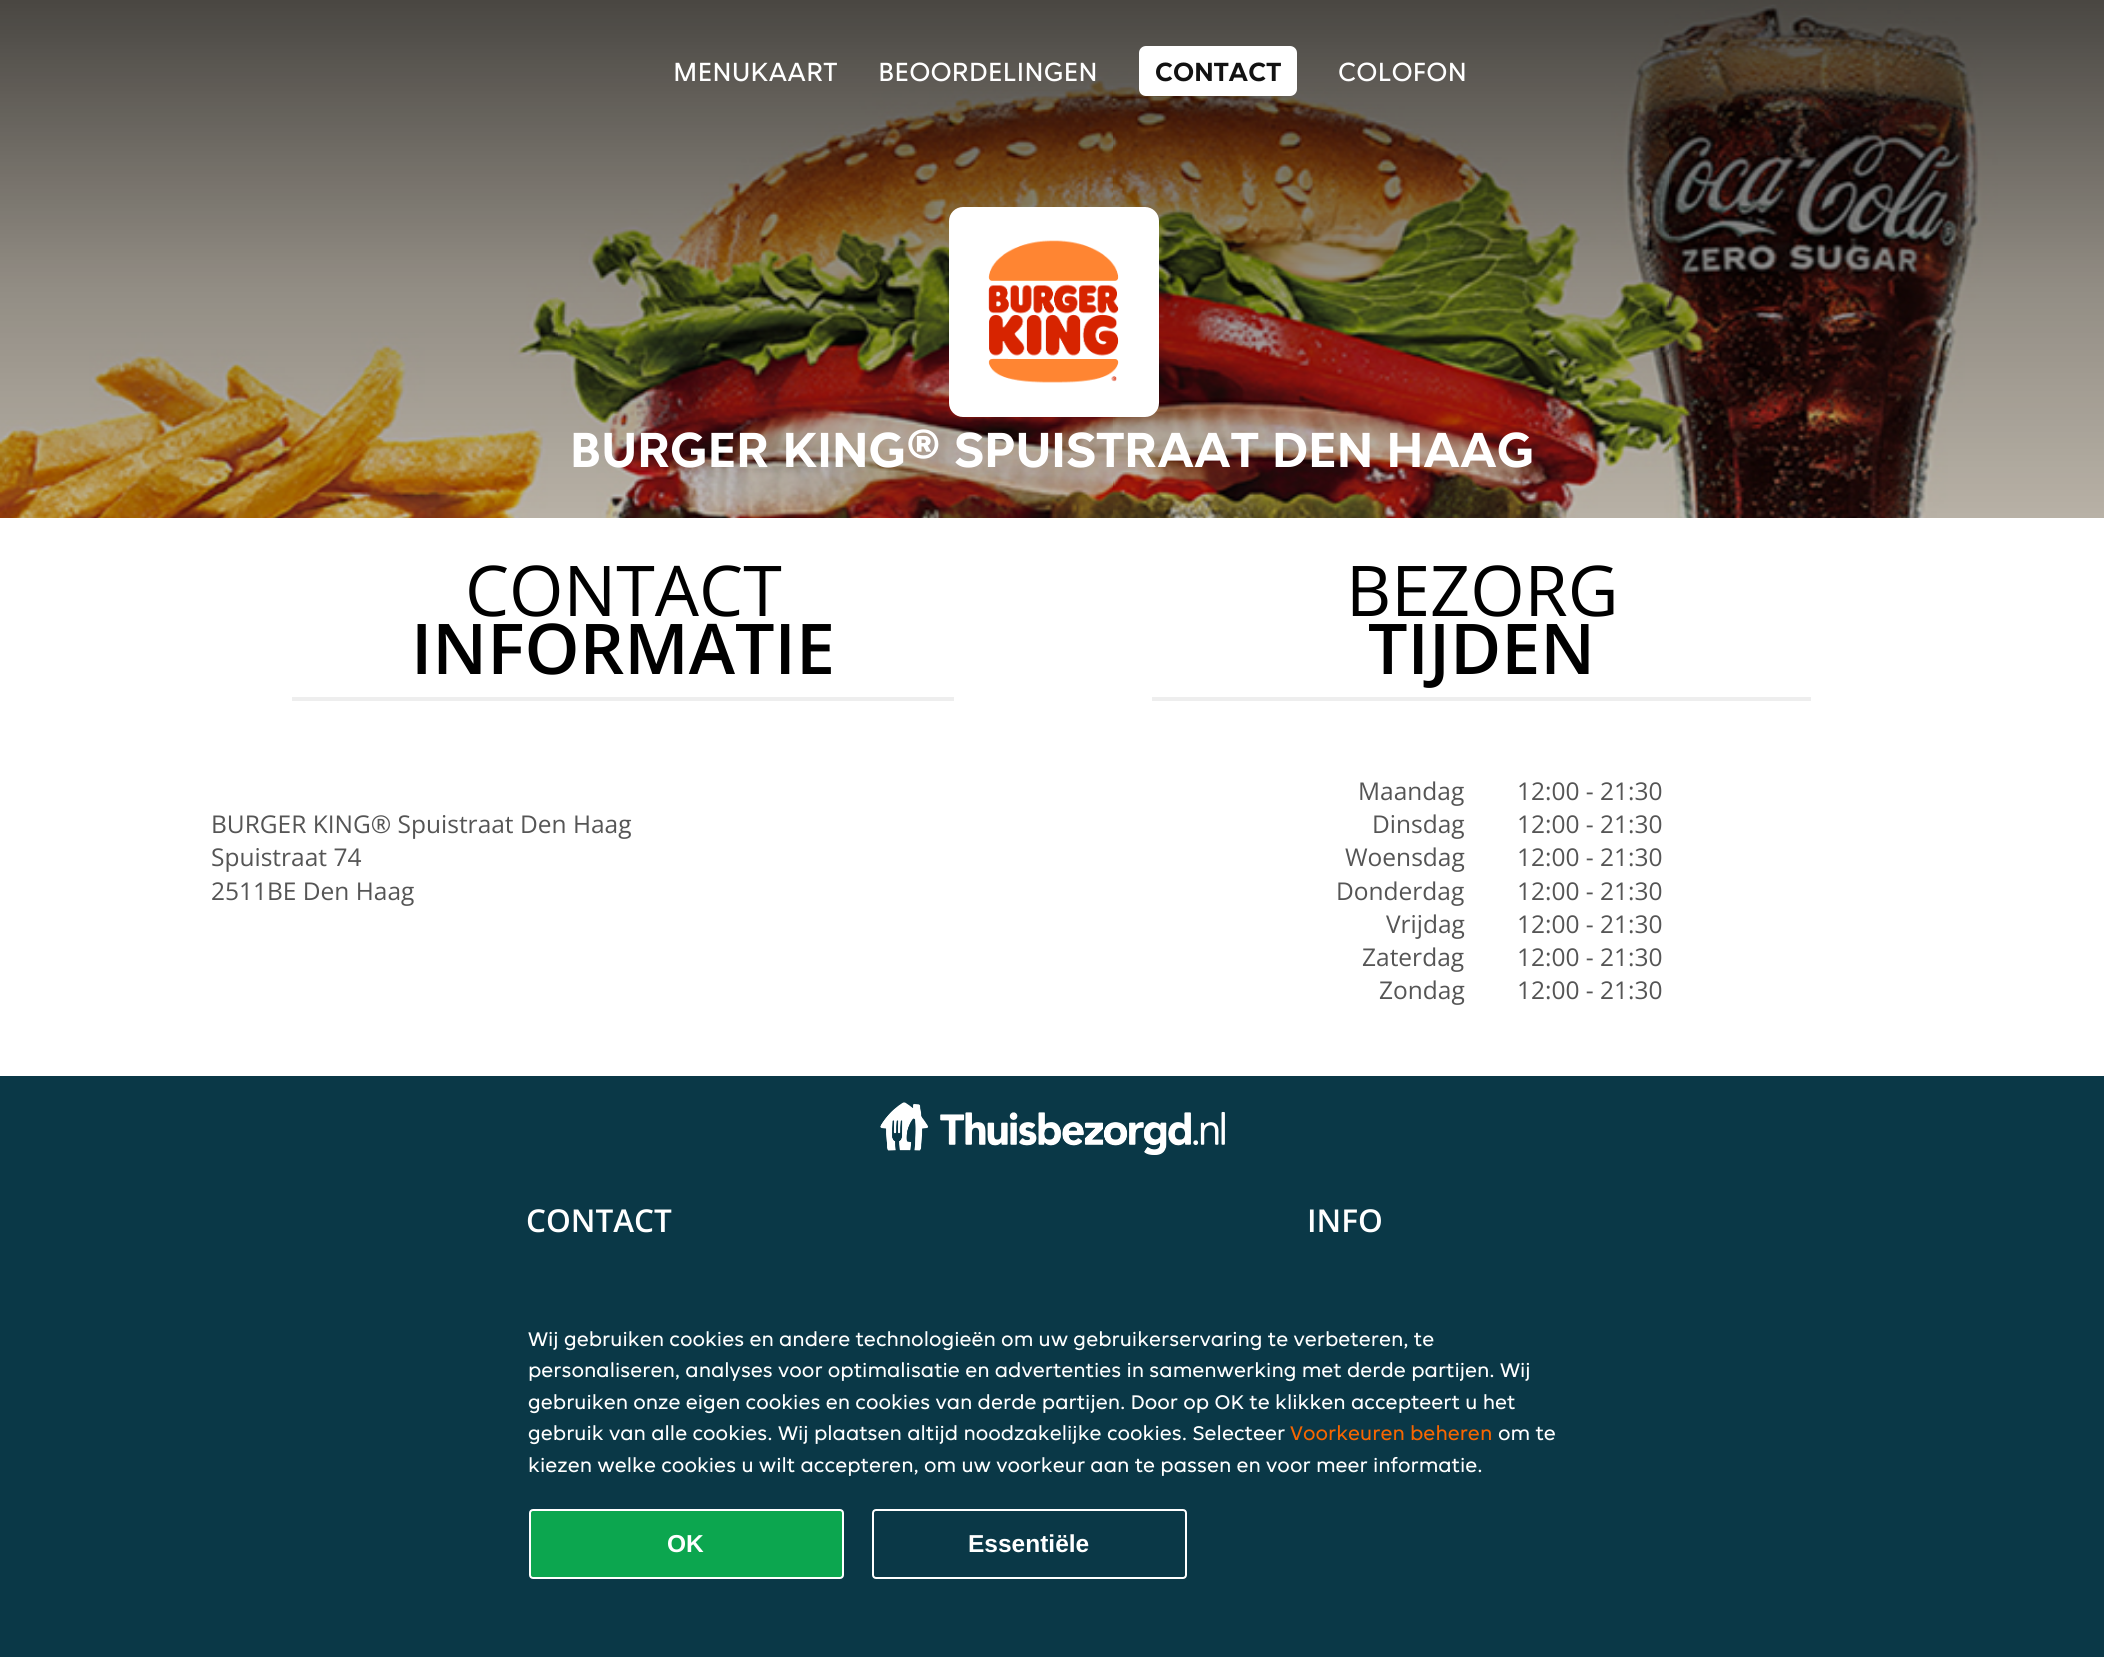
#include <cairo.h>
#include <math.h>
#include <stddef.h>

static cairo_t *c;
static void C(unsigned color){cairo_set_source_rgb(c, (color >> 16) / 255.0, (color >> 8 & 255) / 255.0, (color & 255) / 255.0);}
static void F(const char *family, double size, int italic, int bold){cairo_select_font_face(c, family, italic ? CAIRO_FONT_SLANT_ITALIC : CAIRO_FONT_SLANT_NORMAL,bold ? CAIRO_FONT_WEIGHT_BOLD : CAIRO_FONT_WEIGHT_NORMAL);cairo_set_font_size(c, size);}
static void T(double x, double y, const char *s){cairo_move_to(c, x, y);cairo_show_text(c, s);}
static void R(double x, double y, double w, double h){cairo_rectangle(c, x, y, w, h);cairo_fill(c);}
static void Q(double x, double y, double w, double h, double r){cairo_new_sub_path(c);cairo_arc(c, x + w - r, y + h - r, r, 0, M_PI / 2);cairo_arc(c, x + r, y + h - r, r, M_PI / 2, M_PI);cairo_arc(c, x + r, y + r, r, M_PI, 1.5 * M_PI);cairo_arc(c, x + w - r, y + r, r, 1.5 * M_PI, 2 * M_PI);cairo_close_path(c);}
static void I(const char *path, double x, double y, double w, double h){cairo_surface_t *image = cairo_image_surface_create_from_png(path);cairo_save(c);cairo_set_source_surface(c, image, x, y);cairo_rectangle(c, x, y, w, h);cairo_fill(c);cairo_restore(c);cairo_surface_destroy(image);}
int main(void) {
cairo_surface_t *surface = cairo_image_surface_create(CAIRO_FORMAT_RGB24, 2104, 1657);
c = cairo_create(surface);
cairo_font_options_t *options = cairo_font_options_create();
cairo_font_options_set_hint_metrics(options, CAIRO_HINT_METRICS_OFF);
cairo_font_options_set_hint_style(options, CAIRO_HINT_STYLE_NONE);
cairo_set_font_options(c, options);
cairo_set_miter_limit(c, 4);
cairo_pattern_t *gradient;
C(0xffffff);
cairo_paint(c);
I("1.png",0,0,2104,518);
gradient = cairo_pattern_create_linear(1053,0,1053,875);
cairo_pattern_add_color_stop_rgba(gradient,0,0,0,0,.7);
cairo_pattern_add_color_stop_rgba(gradient,.33,0,0,0,.4);
cairo_pattern_add_color_stop_rgba(gradient,.67,0,0,0,.2);
cairo_pattern_add_color_stop_rgba(gradient,1,0,0,0,0);
cairo_set_source(c,gradient);
cairo_pattern_destroy(gradient);
R(0,0,2104,518);
F("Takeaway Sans",28,0,0);
C(0xffffff);
T(673,81,"MENUKAART");
T(878,81,"BEOORDELINGEN");
Q(1139,46,158,50,7);
cairo_fill(c);
F("Takeaway Sans",28,0,1);
C(0x121212);
T(1155,81,"CONTACT");
F("Takeaway Sans",28,0,0);
C(0xffffff);
T(1338,81,"COLOFON");
Q(949,207,210,210,14);
cairo_fill(c);
I("2.png",988,240,131,143);
F("Takeaway Sans",52.5,0,1);
T(570,467,"BURGER KING® SPUISTRAAT DEN HAAG");
F("Open Sans",70,0,0);
C(0x000000);
T(465,616,"CONTACT");
F("Open Sans SemiBold",70,0,0);
T(411,674,"INFORMATIE");
C(0xeeeeee);
R(292,697,662,4);
F("Open Sans",24.5,0,0);
C(0x555555);
T(211,833,"BURGER KING® Spuistraat Den Haag");
T(211,866,"Spuistraat 74");
T(211,900,"2511BE Den Haag");
F("Open Sans",70,0,0);
C(0x000000);
T(1346,616,"BEZORG");
F("Open Sans SemiBold",70,0,0);
T(1368,674,"TIJDEN");
C(0xeeeeee);
R(1152,697,659,4);
F("Open Sans",24.5,0,0);
C(0x555555);
T(1358,800,"Maandag");
T(1517,800,"12:00 - 21:30");
T(1372,833,"Dinsdag");
T(1517,833,"12:00 - 21:30");
T(1345,866,"Woensdag");
T(1517,866,"12:00 - 21:30");
T(1336,900,"Donderdag");
T(1517,900,"12:00 - 21:30");
T(1386,933,"Vrijdag");
T(1517,933,"12:00 - 21:30");
T(1362,966,"Zaterdag");
T(1517,966,"12:00 - 21:30");
T(1379,999,"Zondag");
T(1517,999,"12:00 - 21:30");
C(0x0a3847);
R(0,1076,2104,581);
I("3.png",880,1102,345,53);
F("Open Sans SemiBold",31.5,0,0);
C(0xffffff);
T(526,1232,"CONTACT");
T(1307,1232,"INFO");
F("Takeaway Sans",21,0,0);
T(528,1346,"Wij gebruiken cookies en andere technologieën om uw gebruikerservaring te verbeteren, te");
T(528,1377,"personaliseren, analyses voor optimalisatie en advertenties in samenwerking met derde partijen. Wij");
T(528,1409,"gebruiken onze eigen cookies en cookies van derde partijen. Door op OK te klikken accepteert u het");
T(528,1440,"gebruik van alle cookies. Wij plaatsen altijd noodzakelijke cookies. Selecteer");
C(0xf86600);
T(1290,1440,"Voorkeuren beheren");
C(0xffffff);
T(1498,1440,"om te");
T(528,1472,"kiezen welke cookies u wilt accepteren, om uw voorkeur aan te passen en voor meer informatie.");
C(0x0ca64f);
Q(530,1510,313,68,3);
cairo_fill_preserve(c);
C(0xffffff);
cairo_stroke(c);
F("Liberation Sans",24.5,0,1);
T(667,1552,"OK");
Q(873,1510,313,68,3);
cairo_stroke(c);
T(968,1552,"Essentiële");
cairo_surface_write_to_png(surface, "o.png");
cairo_font_options_destroy(options);
cairo_destroy(c);
cairo_surface_destroy(surface);
return 0;
}
